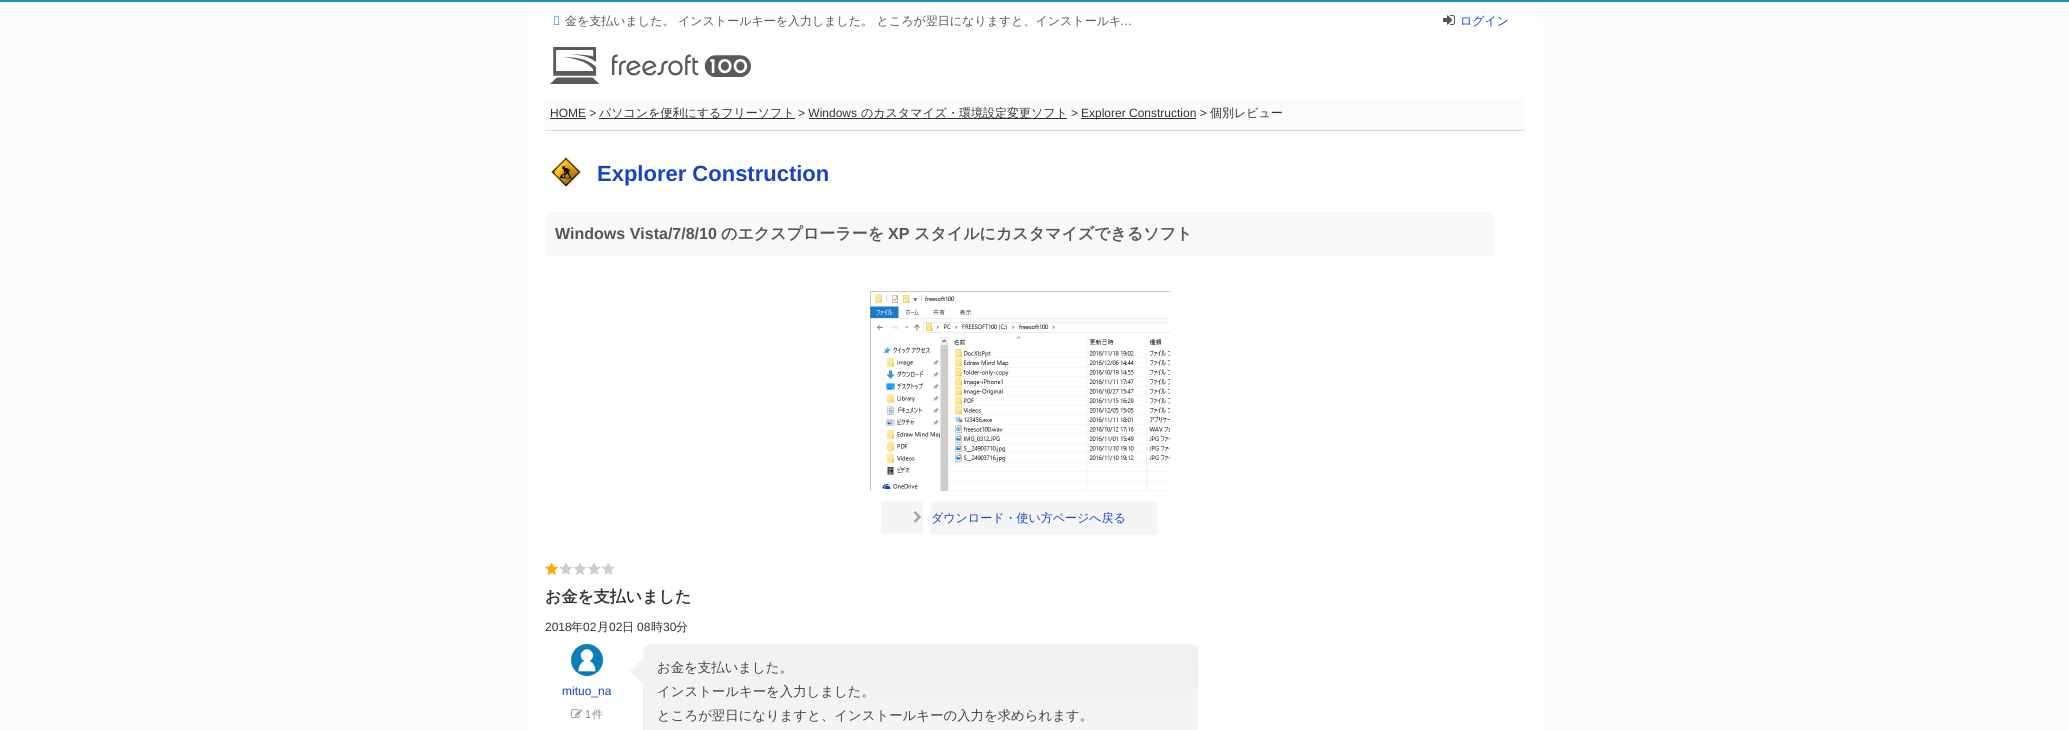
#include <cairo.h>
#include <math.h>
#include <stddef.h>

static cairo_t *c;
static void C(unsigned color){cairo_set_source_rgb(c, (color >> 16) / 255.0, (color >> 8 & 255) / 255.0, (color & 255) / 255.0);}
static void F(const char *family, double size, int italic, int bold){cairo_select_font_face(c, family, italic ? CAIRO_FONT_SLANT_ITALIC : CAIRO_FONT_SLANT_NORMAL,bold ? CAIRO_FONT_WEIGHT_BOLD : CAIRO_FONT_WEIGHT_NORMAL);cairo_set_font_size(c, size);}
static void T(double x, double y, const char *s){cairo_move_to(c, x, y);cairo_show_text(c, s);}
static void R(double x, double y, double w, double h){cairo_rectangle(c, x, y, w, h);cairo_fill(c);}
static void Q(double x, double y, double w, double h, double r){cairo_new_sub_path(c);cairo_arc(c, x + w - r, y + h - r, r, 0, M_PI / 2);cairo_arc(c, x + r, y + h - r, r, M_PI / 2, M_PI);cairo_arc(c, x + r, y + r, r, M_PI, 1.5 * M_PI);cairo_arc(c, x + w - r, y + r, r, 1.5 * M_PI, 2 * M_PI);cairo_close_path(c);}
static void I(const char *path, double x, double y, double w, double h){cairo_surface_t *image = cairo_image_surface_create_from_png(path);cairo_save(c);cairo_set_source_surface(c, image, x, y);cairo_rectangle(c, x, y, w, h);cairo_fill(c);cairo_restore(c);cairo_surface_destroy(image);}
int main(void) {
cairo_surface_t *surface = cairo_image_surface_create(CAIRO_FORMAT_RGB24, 2069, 730);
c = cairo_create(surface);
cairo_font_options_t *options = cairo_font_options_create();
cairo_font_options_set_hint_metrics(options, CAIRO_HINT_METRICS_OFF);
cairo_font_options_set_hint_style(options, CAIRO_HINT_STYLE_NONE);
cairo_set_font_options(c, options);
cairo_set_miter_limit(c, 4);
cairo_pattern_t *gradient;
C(0xfcfcfc);
cairo_paint(c);
C(0x1e8ec8);
R(0,0,2069,2);
C(0xffffff);
R(527,2,1016,728);
F("Noto Sans Thin",12,0,0);
C(0x1e8ec8);
T(553,25,"お");
F("WenQuanYi Zen Hei Medium",12,0,0);
C(0x555555);
T(565,25,"金を支払いました。 インストールキーを入力しました。 ところが翌日になりますと、インストールキ");
F("Liberation Sans",12,0,0);
T(1120,25,"…");
I("1.png",1443,15,12,10);
F("WenQuanYi Zen Hei Medium",12,0,0);
C(0x1743c8);
T(1460,25,"ログイン");
I("2.png",550,47,201,37);
C(0xfbfbfb);
R(545,98,980,32);
C(0xdddddd);
R(545,130,980,1);
F("Liberation Sans",12,0,0);
C(0x333333);
T(550,117,"HOME >");
R(550,118,36,1);
R(599,118,196,1);
F("WenQuanYi Zen Hei Medium",12,0,0);
T(599,117,"パソコンを便利にするフリーソフト");
F("Liberation Sans",12,0,0);
T(798,117,"> Windows");
R(809,118,258,1);
F("WenQuanYi Zen Hei Medium",12,0,0);
T(861,117,"のカスタマイズ・環境設定変更ソフト");
F("Liberation Sans",12,0,0);
T(1071,117,">");
R(1081,118,115,1);
T(1081,117,"Explorer Construction >");
F("WenQuanYi Zen Hei Medium",12,0,0);
T(1210,117,"個別レビュー");
I("3.png",551,157,30,30);
F("Liberation Sans",22,0,1);
C(0x1743c8);
T(597,181,"Explorer Construction");
C(0xf8f8f8);
Q(545,212,950,44,5);
cairo_fill(c);
F("Liberation Sans",16,0,1);
C(0x555555);
T(555,239,"Windows Vista/7/8/10");
F("WenQuanYi Zen Hei",16,0,1);
T(721,239,"のエクスプローラーを");
F("Liberation Sans",16,0,1);
T(888,239,"XP");
F("WenQuanYi Zen Hei",16,0,1);
T(914,239,"スタイルにカスタマイズできるソフト");
I("4.png",870,291,300,200);
C(0xf5f5f5);
cairo_new_path(c);
cairo_move_to(c,884,501);
cairo_line_to(c,923,501);
cairo_line_to(c,923,534);
cairo_line_to(c,884,534);
cairo_curve_to(c,882.5,534,881,532.5,881,531);
cairo_line_to(c,881,504);
cairo_curve_to(c,881,502.5,882.5,501,884,501);
cairo_close_path(c);
cairo_fill(c);
C(0xf8f8f8);
cairo_set_fill_rule(c,CAIRO_FILL_RULE_EVEN_ODD);
cairo_new_path(c);
cairo_move_to(c,884,501);
cairo_line_to(c,923,501);
cairo_line_to(c,923,534);
cairo_line_to(c,884,534);
cairo_curve_to(c,882,534,881,533,881,531);
cairo_line_to(c,881,504);
cairo_curve_to(c,881,502,882,501,884,501);
cairo_close_path(c);
cairo_move_to(c,884,502);
cairo_line_to(c,923,502);
cairo_line_to(c,923,533);
cairo_line_to(c,884,533);
cairo_curve_to(c,883,533,882,532,882,531);
cairo_line_to(c,882,504);
cairo_curve_to(c,882,503,883,502,884,502);
cairo_close_path(c);
cairo_fill(c);
C(0xf5f5f5);
cairo_new_path(c);
cairo_move_to(c,931,501);
cairo_line_to(c,1155,501);
cairo_curve_to(c,1156.5,501,1158,502.5,1158,504);
cairo_line_to(c,1158,532);
cairo_curve_to(c,1158,533.5,1156.5,535,1155,535);
cairo_line_to(c,931,535);
cairo_close_path(c);
cairo_fill(c);
C(0xf8f8f8);
cairo_new_path(c);
cairo_move_to(c,931,501);
cairo_line_to(c,1155,501);
cairo_curve_to(c,1157,501,1158,502,1158,504);
cairo_line_to(c,1158,532);
cairo_curve_to(c,1158,534,1157,535,1155,535);
cairo_line_to(c,931,535);
cairo_close_path(c);
cairo_move_to(c,931,502);
cairo_line_to(c,1155,502);
cairo_curve_to(c,1156,502,1157,503,1157,504);
cairo_line_to(c,1157,532);
cairo_curve_to(c,1157,533,1156,534,1155,534);
cairo_line_to(c,931,534);
cairo_close_path(c);
cairo_fill(c);
I("5.png",913,511,8,12);
F("WenQuanYi Zen Hei Medium",12,0,0);
C(0x1743c8);
T(931,522,"ダウンロード・使い方ページへ戻る");
I("6.png",545,562,70,13);
F("WenQuanYi Zen Hei",16,0,1);
C(0x333333);
T(545,602,"お金を支払いました");
F("Liberation Sans",12,0,0);
T(545,631,"2018");
F("WenQuanYi Zen Hei Medium",12,0,0);
T(571,631,"年");
F("Liberation Sans",12,0,0);
T(583,631,"02");
F("WenQuanYi Zen Hei Medium",12,0,0);
T(597,631,"月");
F("Liberation Sans",12,0,0);
T(609,631,"02");
F("WenQuanYi Zen Hei Medium",12,0,0);
T(622,631,"日");
F("Liberation Sans",12,0,0);
T(637,631,"08");
F("WenQuanYi Zen Hei Medium",12,0,0);
T(651,631,"時");
F("Liberation Sans",12,0,0);
T(663,631,"30");
F("WenQuanYi Zen Hei Medium",12,0,0);
T(676,631,"分");
I("7.png",571,644,32,32);
F("Liberation Sans",12,0,0);
C(0x1743c8);
T(562,695,"mituo_na");
I("8.png",571,709,11,9);
F("Liberation Sans",11,0,0);
C(0x888888);
T(585,718,"1");
F("WenQuanYi Zen Hei Medium",11,0,0);
T(592,718,"件");
cairo_save(c);
cairo_set_fill_rule(c,CAIRO_FILL_RULE_WINDING);
Q(643,644,555,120,8);
cairo_clip(c);
gradient = cairo_pattern_create_linear(921,646,921,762);
cairo_pattern_add_color_stop_rgba(gradient,0,0.945,0.945,0.945,1);
cairo_pattern_add_color_stop_rgba(gradient,1,0.961,0.961,0.961,1);
cairo_set_source(c,gradient);
cairo_pattern_destroy(gradient);
R(643,646,555,84);
cairo_restore(c);
Q(644,645,553,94,7);
C(0xf1f1f1);
cairo_stroke(c);
cairo_set_fill_rule(c,CAIRO_FILL_RULE_WINDING);
cairo_new_path(c);
cairo_move_to(c,645,656);
cairo_line_to(c,645,686);
cairo_line_to(c,630,671);
cairo_close_path(c);
cairo_fill(c);
F("WenQuanYi Zen Hei Medium",13.4,0,0);
C(0x444444);
T(657,672,"お金を支払いました。");
T(657,696,"インストールキーを入力しました。");
T(657,720,"ところが翌日になりますと、インストールキーの入力を求められます。");
cairo_surface_write_to_png(surface, "o.png");
cairo_font_options_destroy(options);
cairo_destroy(c);
cairo_surface_destroy(surface);
return 0;
}
